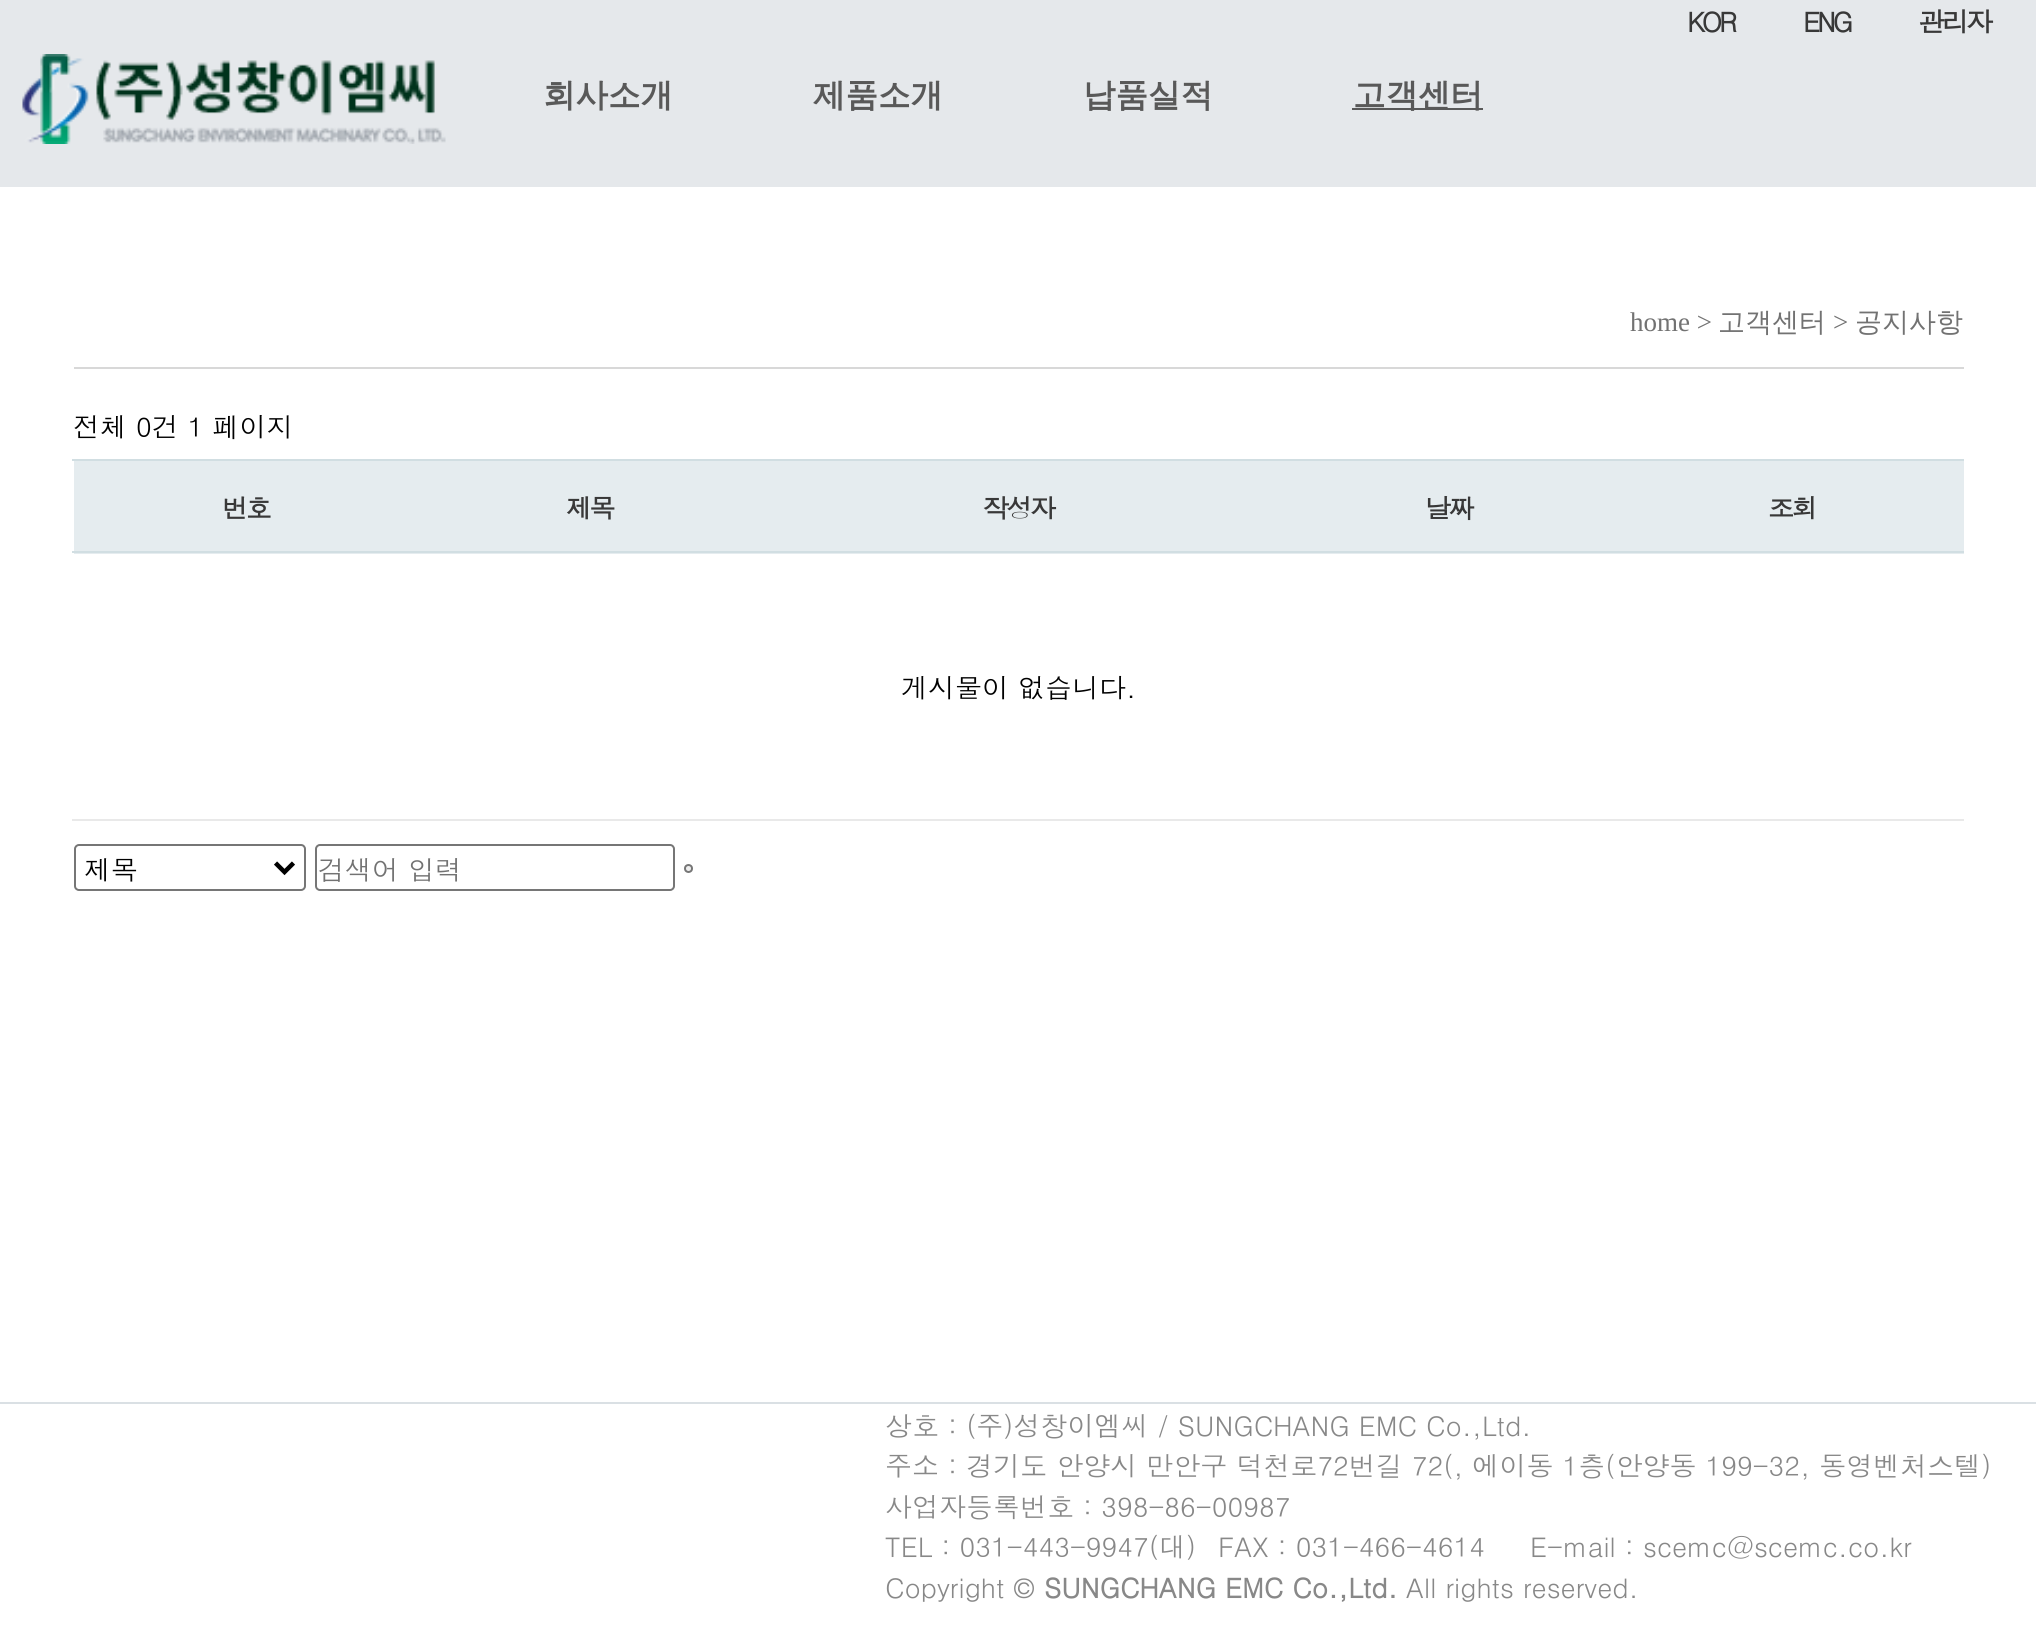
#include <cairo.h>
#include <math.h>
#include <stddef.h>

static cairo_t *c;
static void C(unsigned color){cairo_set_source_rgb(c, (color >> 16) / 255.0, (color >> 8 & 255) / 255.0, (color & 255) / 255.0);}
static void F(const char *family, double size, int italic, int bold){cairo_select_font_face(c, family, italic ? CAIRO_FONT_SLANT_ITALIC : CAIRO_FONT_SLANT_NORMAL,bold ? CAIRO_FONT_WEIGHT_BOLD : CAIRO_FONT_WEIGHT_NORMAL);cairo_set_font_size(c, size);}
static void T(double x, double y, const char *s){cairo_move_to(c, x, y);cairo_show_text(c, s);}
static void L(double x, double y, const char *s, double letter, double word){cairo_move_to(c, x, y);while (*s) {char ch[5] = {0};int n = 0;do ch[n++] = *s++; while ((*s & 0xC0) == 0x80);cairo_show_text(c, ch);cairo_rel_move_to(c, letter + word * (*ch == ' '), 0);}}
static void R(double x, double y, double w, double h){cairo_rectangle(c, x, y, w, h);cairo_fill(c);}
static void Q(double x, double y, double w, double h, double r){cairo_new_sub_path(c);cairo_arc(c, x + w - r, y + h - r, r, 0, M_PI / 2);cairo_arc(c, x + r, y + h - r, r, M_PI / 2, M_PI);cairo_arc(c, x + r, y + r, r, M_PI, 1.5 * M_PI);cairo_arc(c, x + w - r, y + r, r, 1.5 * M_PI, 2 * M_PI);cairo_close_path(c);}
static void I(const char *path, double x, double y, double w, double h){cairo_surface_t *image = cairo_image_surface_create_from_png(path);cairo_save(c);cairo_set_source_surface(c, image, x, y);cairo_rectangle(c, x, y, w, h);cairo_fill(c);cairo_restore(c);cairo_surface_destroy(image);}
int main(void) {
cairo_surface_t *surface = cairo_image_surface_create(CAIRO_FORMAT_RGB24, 2036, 1626);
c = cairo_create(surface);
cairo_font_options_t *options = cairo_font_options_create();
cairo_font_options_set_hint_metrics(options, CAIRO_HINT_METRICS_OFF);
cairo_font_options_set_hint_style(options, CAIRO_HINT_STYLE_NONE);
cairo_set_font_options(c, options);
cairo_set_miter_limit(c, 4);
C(0xe5e8eb);
cairo_paint(c);
F("Dotum",27,0,1);
C(0x383838);
L(1687,32,"KOR",-3,0);
L(1803,32,"ENG",-3,0);
L(1918,32,"관리자",-3,0);
I("1.png",22,54,424,90);
F("WenQuanYi Zen Hei",32.5,0,1);
C(0x595959);
T(543,106,"회사소개");
T(813,106,"제품소개");
T(1083,106,"납품실적");
R(1352,108,131,2);
T(1353,106,"고객센터");
C(0xffffff);
R(0,187,2036,1215);
C(0xd8d8d8);
R(74,367,1890,2);
F("Liberation Serif",27,0,0);
C(0x727272);
T(1630,331,"home >");
F("WenQuanYi Zen Hei Medium",27,0,0);
T(1718,331,"고객센터");
F("Liberation Serif",27,0,0);
T(1833,331,">");
F("WenQuanYi Zen Hei Medium",27,0,0);
T(1855,331,"공지사항");
F("Dotum",27,0,0);
C(0x000000);
T(73,437,"전체 0건 1 페이지");
C(0xe5ecef);
R(74,461,1890,93);
F("Dotum",26,0,1);
C(0x383838);
L(222,518,"번호",-2.5,0);
L(566,518,"제목",-2.5,0);
L(983,518,"작성자",-2.5,0);
L(1425,518,"날짜",-2.5,0);
C(0xd1dee2);
R(72,459,1892,2);
R(72,551,1892,2);
C(0x383838);
L(1768,518,"조회",-2.5,0);
C(0xe9e9e9);
R(72,819,1892,2);
F("Dotum",27,0,0);
C(0x000000);
T(901,698,"게시물이 없습니다.");
Q(75,845,230,45,4);
C(0x767676);
cairo_stroke(c);
cairo_new_path(c);
cairo_move_to(c,275.5,863);
cairo_line_to(c,284.5,872);
cairo_line_to(c,293.5,863);
C(0x000000);
cairo_set_line_width(c,4.5);
cairo_stroke(c);
T(84,880,"제목");
Q(316,845,358,45,4);
C(0x767676);
cairo_set_line_width(c,2);
cairo_stroke(c);
C(0x727272);
T(318,880,"검색어 입력");
C(0xefefef);
cairo_new_path(c);
cairo_arc(c,688.5,868.5,3.5,0,2 * M_PI);
cairo_fill_preserve(c);
C(0x767676);
cairo_stroke(c);
C(0xffffff);
R(0,1404,2036,222);
C(0xdae0e4);
R(0,1402,2036,2);
C(0x888888);
T(885,1436,"상호 : (주)성창이엠씨 / SUNGCHANG EMC Co.,Ltd.");
T(885,1476,"주소 : 경기도 안양시 만안구 덕천로72번길 72(, 에이동 1층(안양동 199-32, 동영벤처스텔)");
T(885,1517,"사업자등록번호 : 398-86-00987");
T(885,1557,"TEL : 031-443-9947(대)");
T(1218,1557,"FAX : 031-466-4614");
T(1530,1557,"E-mail : scemc@scemc.co.kr");
T(885,1598,"Copyright ©");
F("Dotum",27,0,1);
T(1044,1598,"SUNGCHANG EMC Co.,Ltd.");
F("Dotum",27,0,0);
T(1406,1598,"All rights reserved.");
cairo_surface_write_to_png(surface, "o.png");
cairo_font_options_destroy(options);
cairo_destroy(c);
cairo_surface_destroy(surface);
return 0;
}
